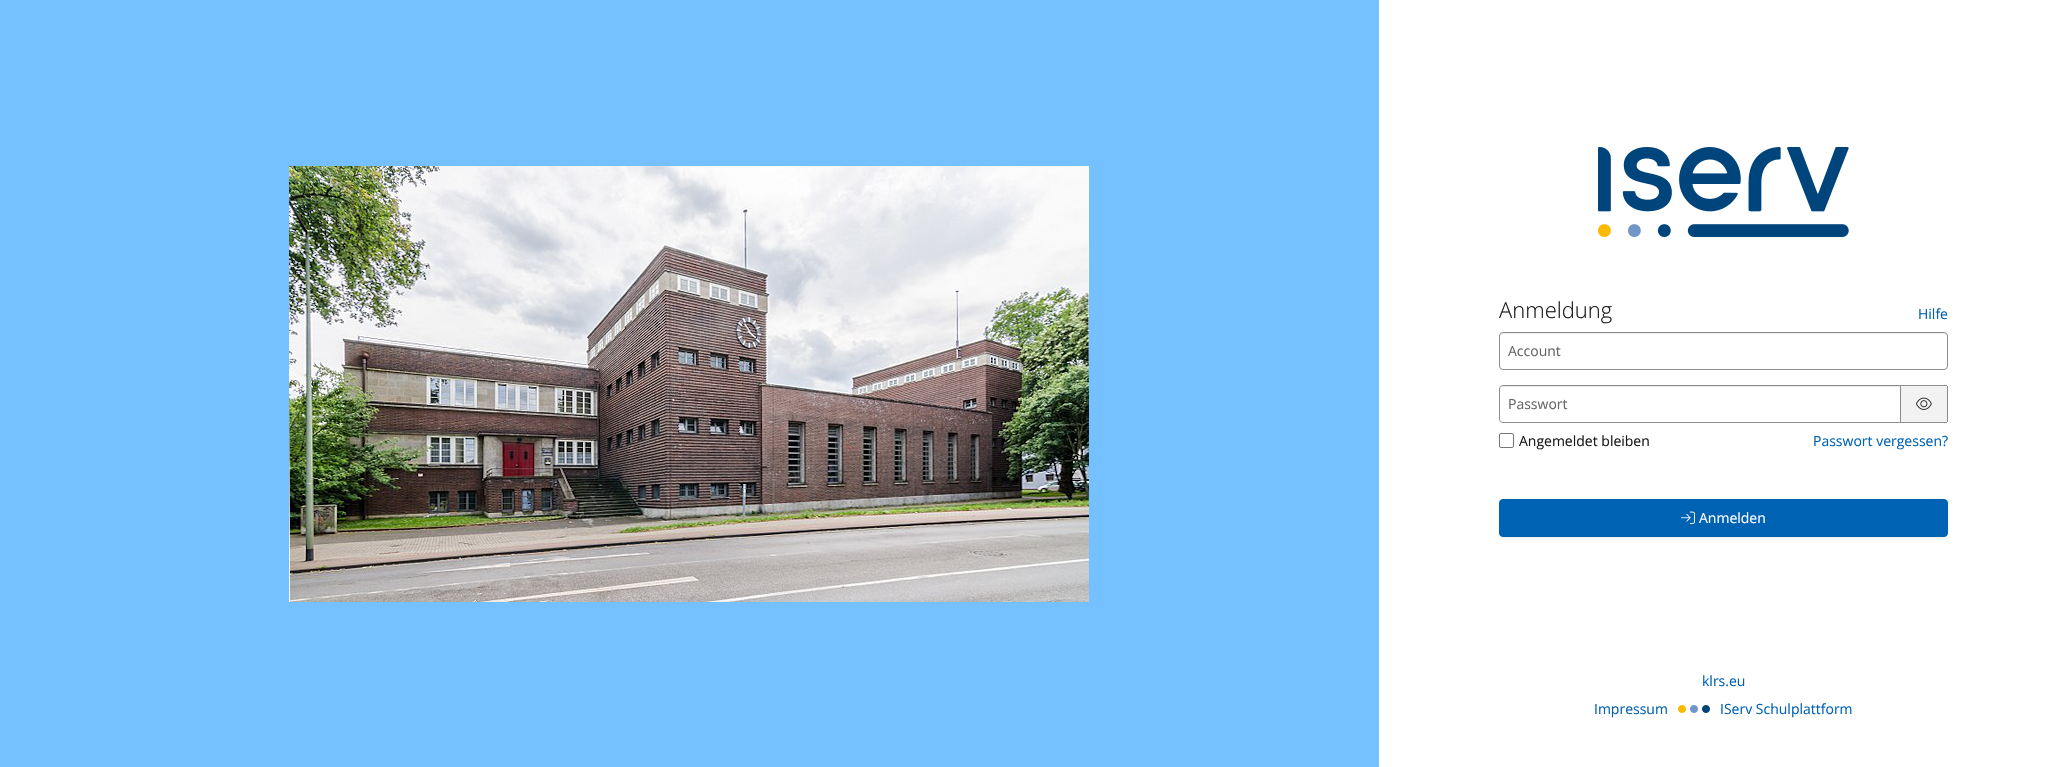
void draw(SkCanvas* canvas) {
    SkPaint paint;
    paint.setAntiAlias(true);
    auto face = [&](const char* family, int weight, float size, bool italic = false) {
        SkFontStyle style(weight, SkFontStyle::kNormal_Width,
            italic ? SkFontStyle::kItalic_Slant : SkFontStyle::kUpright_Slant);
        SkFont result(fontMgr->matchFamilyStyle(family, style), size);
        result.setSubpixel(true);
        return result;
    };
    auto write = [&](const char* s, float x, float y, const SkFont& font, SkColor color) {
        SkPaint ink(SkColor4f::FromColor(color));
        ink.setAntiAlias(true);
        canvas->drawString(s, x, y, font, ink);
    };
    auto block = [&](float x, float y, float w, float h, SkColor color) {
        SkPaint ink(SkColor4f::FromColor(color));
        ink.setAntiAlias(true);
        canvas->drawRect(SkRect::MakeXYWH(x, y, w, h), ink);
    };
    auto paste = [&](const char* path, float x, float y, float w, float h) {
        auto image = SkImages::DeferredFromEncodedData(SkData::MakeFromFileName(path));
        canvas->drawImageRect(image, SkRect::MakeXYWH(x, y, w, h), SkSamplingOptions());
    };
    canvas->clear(SK_ColorWHITE);
    block(0, 0, 1379, 767, SkColorSetRGB(117, 193, 255));
    paste("pic1.png", 289, 166, 800, 436);
    paste("pic2.png", 1598, 147, 251, 90);
    auto kFont1 = face("Open Sans", 300, 22);
    write("Anmeldung", 1499, 318, kFont1, SkColorSetRGB(26, 26, 26));
    auto kFont2 = face("Open Sans", 400, 14);
    write("Hilfe", 1918, 319, kFont2, SkColorSetRGB(0, 98, 179));
    paint.setColor(SkColorSetRGB(236, 236, 236));
    canvas->drawPath(SkPathBuilder().moveTo(1503, 334).lineTo(1944, 334).cubicTo(1946, 334, 1947, 335, 1947, 337).lineTo(1947, 335).lineTo(1945, 333).lineTo(1503, 333).cubicTo(1501, 333, 1500, 335, 1500, 337).cubicTo(1500, 335, 1501, 334, 1503, 334).close().detach(), paint);
    paint.setStyle(SkPaint::kStroke_Style);
    paint.setStrokeWidth(1);
    paint.setColor(SkColorSetRGB(140, 140, 140));
    canvas->drawRoundRect(SkRect::MakeXYWH(1499.5f, 332.5f, 448, 37), 3.5f, 3.5f, paint);
    write("Account", 1508, 356, kFont2, SkColorSetRGB(102, 102, 102));
    paint.setStyle(SkPaint::kFill_Style);
    paint.setColor(SkColorSetRGB(236, 236, 236));
    canvas->drawPath(SkPathBuilder().moveTo(1503, 387).lineTo(1900, 387).lineTo(1900, 386).lineTo(1503, 386).cubicTo(1501, 386, 1500, 387, 1500, 389).lineTo(1500, 390).cubicTo(1500, 388, 1501, 387, 1503, 387).close().detach(), paint);
    paint.setStyle(SkPaint::kStroke_Style);
    paint.setColor(SkColorSetRGB(140, 140, 140));
    canvas->drawPath(SkPathBuilder().moveTo(1503, 385.5f).lineTo(1900.5f, 385.5f).lineTo(1900.5f, 422.5f).lineTo(1503, 422.5f).cubicTo(1501, 422.5f, 1499.5f, 421, 1499.5f, 419).lineTo(1499.5f, 389).cubicTo(1499.5f, 387, 1501, 385.5f, 1503, 385.5f).close().detach(), paint);
    write("Passwort", 1508, 409, kFont2, SkColorSetRGB(102, 102, 102));
    paint.setStyle(SkPaint::kFill_Style);
    paint.setColor(SkColorSetRGB(242, 242, 242));
    canvas->drawPath(SkPathBuilder().moveTo(1901, 385).lineTo(1946, 385).cubicTo(1947, 385, 1948, 386, 1948, 387).lineTo(1948, 421).cubicTo(1948, 422, 1947, 423, 1946, 423).lineTo(1901, 423).close().detach(), paint);
    block(1901, 385, 46, 1, SkColorSetRGB(140, 140, 140));
    block(1947, 386, 1, 36, SkColorSetRGB(140, 140, 140));
    block(1901, 422, 46, 1, SkColorSetRGB(140, 140, 140));
    paste("pic3.png", 1916, 397, 16, 13);
    paint.setStyle(SkPaint::kStroke_Style);
    paint.setColor(SkColorSetRGB(118, 118, 118));
    canvas->drawRoundRect(SkRect::MakeXYWH(1499.5f, 433.5f, 14, 14), 1.5f, 1.5f, paint);
    write("Angemeldet bleiben", 1519, 446, kFont2, SkColorSetRGB(26, 26, 26));
    write("Passwort vergessen?", 1813, 446, kFont2, SkColorSetRGB(0, 98, 179));
    paint.setStyle(SkPaint::kFill_Style);
    paint.setColor(SkColorSetARGB(20, 0, 0, 0));
    paint.setMaskFilter(SkMaskFilter::MakeBlur(kNormal_SkBlurStyle, 1.5f));
    canvas->drawRoundRect(SkRect::MakeXYWH(1499, 500, 449, 38), 4, 4, paint);
    paint.setMaskFilter(nullptr);
    paint.setColor(SkColorSetRGB(0, 98, 179));
    canvas->drawRoundRect(SkRect::MakeXYWH(1499.5f, 499.5f, 448, 37), 3.5f, 3.5f, paint);
    paint.setStyle(SkPaint::kStroke_Style);
    canvas->drawRoundRect(SkRect::MakeXYWH(1499.5f, 499.5f, 448, 37), 3.5f, 3.5f, paint);
    paste("pic4.png", 1681, 511, 14, 13);
    write("Anmelden", 1699, 523, kFont2, SK_ColorWHITE);
    write("klrs.eu", 1702, 686, kFont2, SkColorSetRGB(0, 98, 179));
    write("Impressum", 1594, 714, kFont2, SkColorSetRGB(0, 98, 179));
    paste("pic5.png", 1678, 705, 8, 8);
    paste("pic6.png", 1690, 705, 8, 8);
    paste("pic7.png", 1702, 705, 8, 8);
    write("IServ Schulplattform", 1720, 714, kFont2, SkColorSetRGB(0, 98, 179));
}
